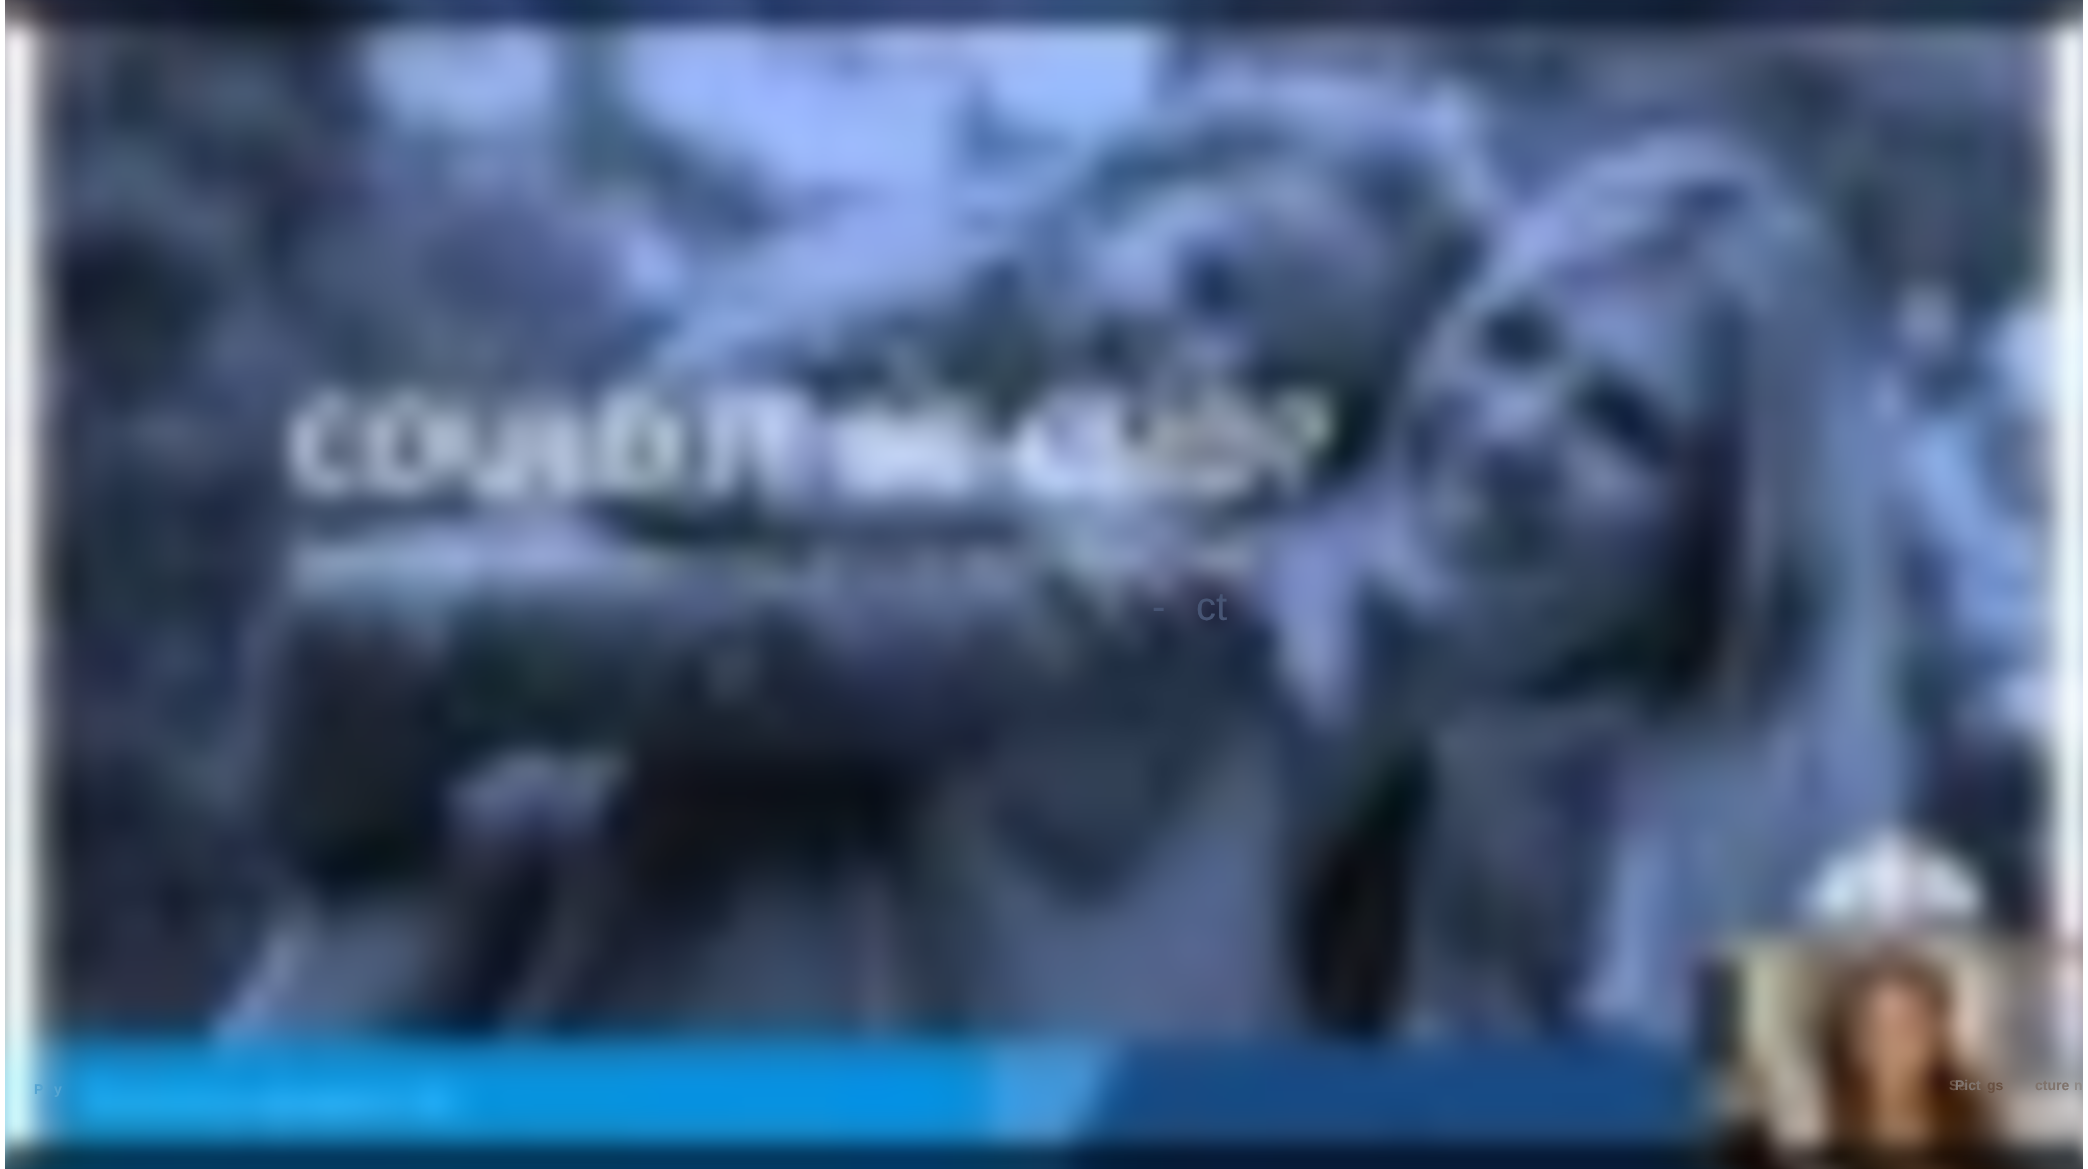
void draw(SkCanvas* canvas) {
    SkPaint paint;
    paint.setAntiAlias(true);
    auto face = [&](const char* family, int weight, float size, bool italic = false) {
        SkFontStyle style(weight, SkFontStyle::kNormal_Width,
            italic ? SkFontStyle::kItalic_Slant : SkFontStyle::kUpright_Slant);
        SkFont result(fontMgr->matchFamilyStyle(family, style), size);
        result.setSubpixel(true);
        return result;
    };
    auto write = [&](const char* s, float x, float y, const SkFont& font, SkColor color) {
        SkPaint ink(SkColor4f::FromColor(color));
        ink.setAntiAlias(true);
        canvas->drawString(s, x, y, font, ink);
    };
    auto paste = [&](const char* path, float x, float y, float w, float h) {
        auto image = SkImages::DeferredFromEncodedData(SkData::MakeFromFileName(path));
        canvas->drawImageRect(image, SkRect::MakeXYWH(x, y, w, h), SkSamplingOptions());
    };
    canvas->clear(SK_ColorWHITE);
    paste("pic1.png", 5, 0, 2078, 1169);
    paste("pic2.png", 5, 0, 2078, 1169);
    auto kFont1 = face("Liberation Sans", 400, 40);
    write("-", 1152, 620, kFont1, SkColorSetRGB(71, 85, 116));
    write("ct", 1196, 620, kFont1, SkColorSetRGB(71, 85, 116));
    auto kFont2 = face("Liberation Sans", 700, 14);
    write("P", 34, 1094, kFont2, SkColorSetRGB(85, 165, 210));
    write("y", 54, 1094, kFont2, SkColorSetRGB(85, 165, 210));
    write("Se", 1949, 1090, kFont2, SkColorSetRGB(104, 80, 65));
    write("Pict", 1955, 1090, kFont2, SkColorSetRGB(128, 116, 109));
    write("cture", 2035, 1090, kFont2, SkColorSetRGB(128, 116, 109));
    write("gs", 1987, 1090, kFont2, SkColorSetRGB(104, 80, 65));
    write("n", 2074, 1090, kFont2, SkColorSetRGB(144, 139, 137));
}
